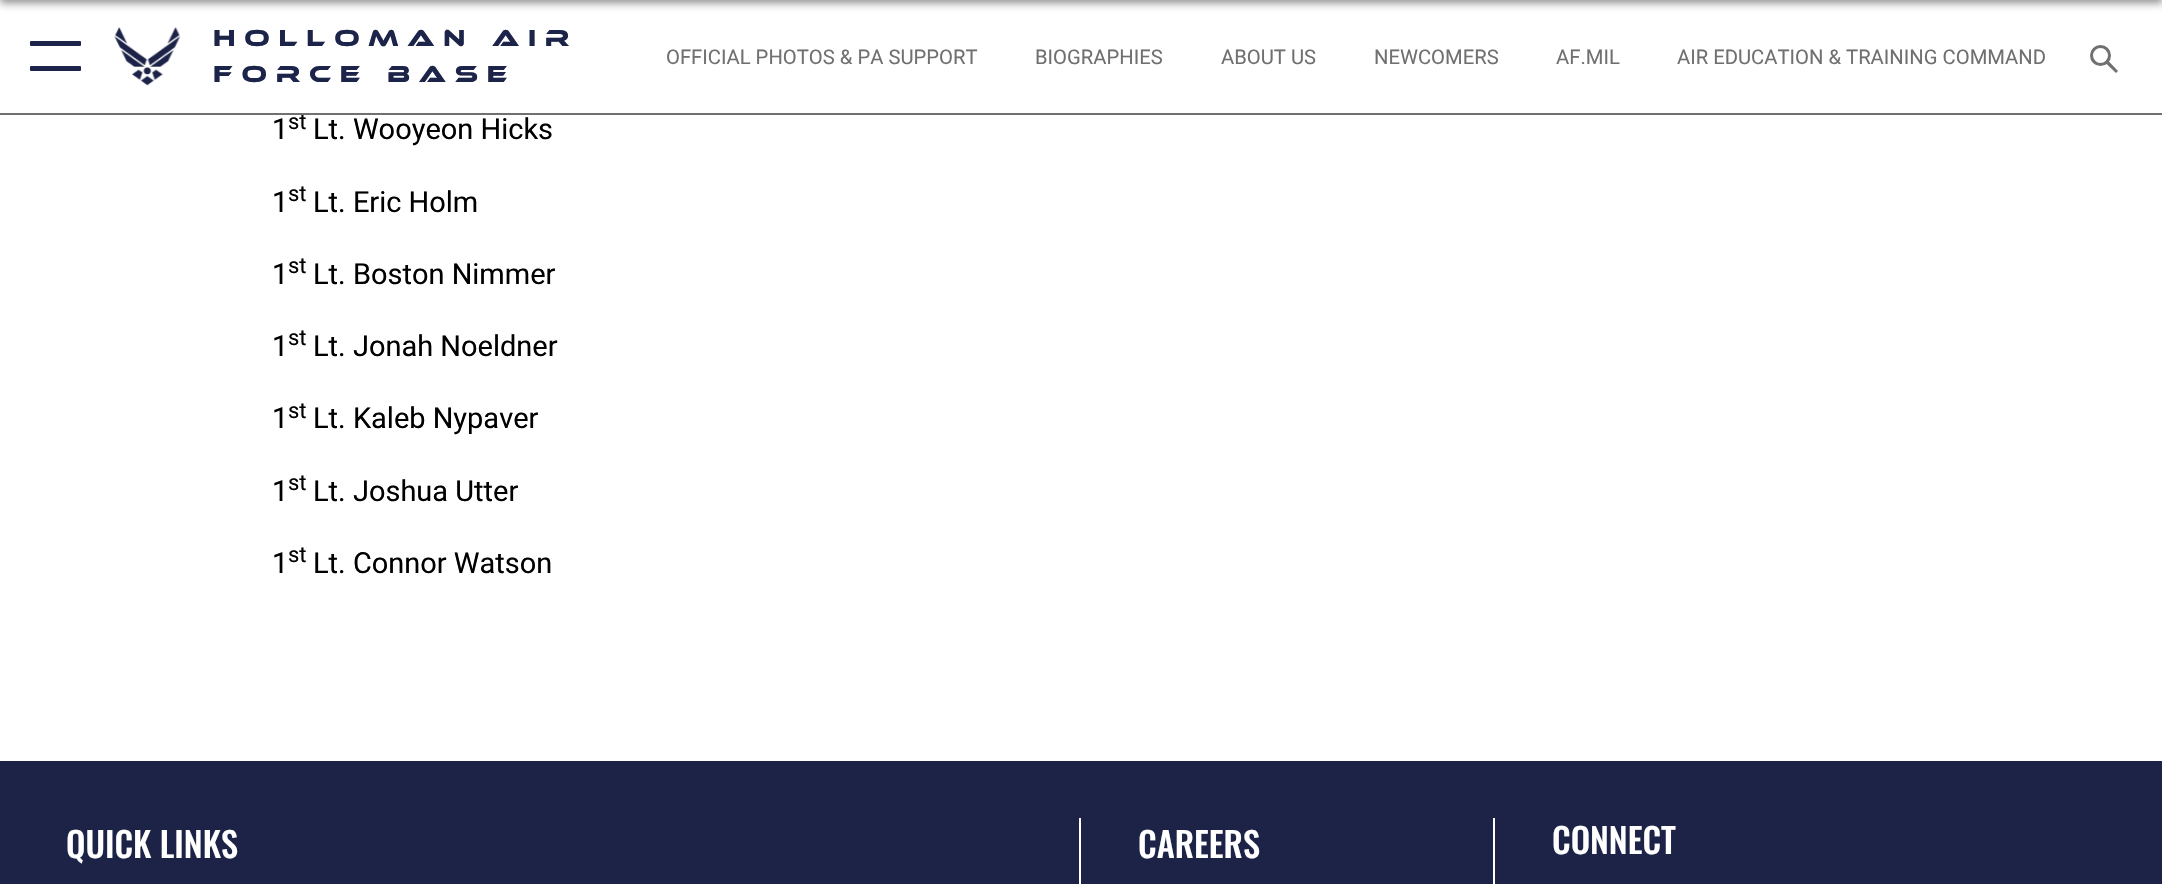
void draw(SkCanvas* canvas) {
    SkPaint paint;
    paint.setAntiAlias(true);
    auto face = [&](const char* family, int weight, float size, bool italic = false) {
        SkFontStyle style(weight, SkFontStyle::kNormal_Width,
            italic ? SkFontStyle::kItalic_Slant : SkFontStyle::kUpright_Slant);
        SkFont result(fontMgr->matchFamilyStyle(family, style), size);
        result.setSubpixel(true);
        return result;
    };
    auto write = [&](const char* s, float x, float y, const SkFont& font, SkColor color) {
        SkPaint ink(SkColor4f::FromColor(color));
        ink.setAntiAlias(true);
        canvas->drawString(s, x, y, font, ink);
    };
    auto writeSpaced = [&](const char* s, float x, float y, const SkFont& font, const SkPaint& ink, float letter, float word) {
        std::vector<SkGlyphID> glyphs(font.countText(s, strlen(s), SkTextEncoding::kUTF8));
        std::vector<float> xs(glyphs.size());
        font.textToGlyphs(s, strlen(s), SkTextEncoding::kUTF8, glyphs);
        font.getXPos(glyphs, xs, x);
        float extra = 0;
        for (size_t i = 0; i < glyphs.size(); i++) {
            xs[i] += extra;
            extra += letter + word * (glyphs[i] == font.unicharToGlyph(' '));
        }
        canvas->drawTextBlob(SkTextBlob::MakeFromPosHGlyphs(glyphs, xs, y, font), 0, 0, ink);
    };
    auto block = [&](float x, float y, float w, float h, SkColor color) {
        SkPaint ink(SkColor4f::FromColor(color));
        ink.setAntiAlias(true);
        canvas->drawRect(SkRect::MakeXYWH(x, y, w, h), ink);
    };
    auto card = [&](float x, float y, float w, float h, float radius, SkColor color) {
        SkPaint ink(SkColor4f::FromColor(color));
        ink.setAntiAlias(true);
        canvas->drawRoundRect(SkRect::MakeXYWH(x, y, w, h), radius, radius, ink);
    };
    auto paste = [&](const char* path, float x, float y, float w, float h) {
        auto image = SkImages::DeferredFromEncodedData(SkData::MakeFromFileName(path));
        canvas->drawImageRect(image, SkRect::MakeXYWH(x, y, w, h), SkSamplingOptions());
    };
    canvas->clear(SK_ColorWHITE);
    paint.setColor(SkColorSetARGB(115, 0, 0, 0));
    paint.setMaskFilter(SkMaskFilter::MakeBlur(kNormal_SkBlurStyle, 4));
    canvas->drawRect(SkRect::MakeXYWH(0, -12, 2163, 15), paint);
    paint.setMaskFilter(nullptr);
    auto kFont1 = face("Roboto", 400, 22);
    write("st", 288, 129, kFont1, SK_ColorBLACK);
    block(0, 113, 2162, 2, SkColorSetRGB(112, 112, 112));
    card(30, 41, 51, 5, 1, SkColorSetRGB(28, 36, 73));
    card(30, 66, 51, 5, 1, SkColorSetRGB(28, 36, 73));
    paste("pic1.png", 114, 27, 67, 59);
    auto kFont2 = face("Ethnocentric", 400, 24);
    paint.setColor(SkColorSetRGB(28, 36, 73));
    writeSpaced("Holloman Air", 213, 46, kFont2, paint, 8.75f, 0);
    writeSpaced("Force Base", 213, 82, kFont2, paint, 8.75f, 0);
    auto kFont3 = face("Roboto", 400, 20.25f);
    write("OFFICIAL PHOTOS & PA SUPPORT", 666, 64, kFont3, SkColorSetRGB(112, 112, 112));
    write("BIOGRAPHIES", 1035, 64, kFont3, SkColorSetRGB(112, 112, 112));
    write("ABOUT US", 1221, 64, kFont3, SkColorSetRGB(112, 112, 112));
    write("NEWCOMERS", 1374, 64, kFont3, SkColorSetRGB(112, 112, 112));
    write("AF.MIL", 1556, 64, kFont3, SkColorSetRGB(112, 112, 112));
    write("AIR EDUCATION & TRAINING COMMAND", 1677, 64, kFont3, SkColorSetRGB(112, 112, 112));
    paint.setStyle(SkPaint::kStroke_Style);
    paint.setStrokeWidth(3);
    paint.setColor(SkColorSetRGB(112, 112, 112));
    canvas->drawCircle(2100.5f, 55.5f, 9, paint);
    paint.setStyle(SkPaint::kFill_Style);
    canvas->drawPath(SkPathBuilder().moveTo(2107.5f, 60).lineTo(2118, 71).lineTo(2116, 73).lineTo(2105, 62.5f).close().detach(), paint);
    auto kFont4 = face("Roboto", 400, 29);
    write("1", 272, 139, kFont4, SK_ColorBLACK);
    write("Lt. Wooyeon Hicks", 313, 139, kFont4, SK_ColorBLACK);
    write("1", 272, 212, kFont4, SK_ColorBLACK);
    write("st", 288, 201, kFont1, SK_ColorBLACK);
    write("Lt. Eric Holm", 313, 212, kFont4, SK_ColorBLACK);
    write("1", 272, 284, kFont4, SK_ColorBLACK);
    write("st", 288, 273, kFont1, SK_ColorBLACK);
    write("Lt. Boston Nimmer", 313, 284, kFont4, SK_ColorBLACK);
    write("1", 272, 356, kFont4, SK_ColorBLACK);
    write("st", 288, 345, kFont1, SK_ColorBLACK);
    write("Lt. Jonah Noeldner", 313, 356, kFont4, SK_ColorBLACK);
    write("1", 272, 428, kFont4, SK_ColorBLACK);
    write("st", 288, 418, kFont1, SK_ColorBLACK);
    write("Lt. Kaleb Nypaver", 313, 428, kFont4, SK_ColorBLACK);
    write("1", 272, 501, kFont4, SK_ColorBLACK);
    write("st", 288, 490, kFont1, SK_ColorBLACK);
    write("Lt. Joshua Utter", 313, 501, kFont4, SK_ColorBLACK);
    write("1", 272, 573, kFont4, SK_ColorBLACK);
    write("st", 288, 562, kFont1, SK_ColorBLACK);
    write("Lt. Connor Watson", 313, 573, kFont4, SK_ColorBLACK);
    block(0, 761, 2162, 123, SkColorSetRGB(28, 35, 71));
    auto kFont5 = face("Oswald", 500, 34.5f);
    write("QUICK LINKS", 66, 858, kFont5, SK_ColorWHITE);
    block(1493, 818, 2, 66, SK_ColorWHITE);
    block(1079, 818, 2, 66, SK_ColorWHITE);
    write("CAREERS", 1138, 858, kFont5, SK_ColorWHITE);
    write("CONNECT", 1552, 854, kFont5, SK_ColorWHITE);
}
